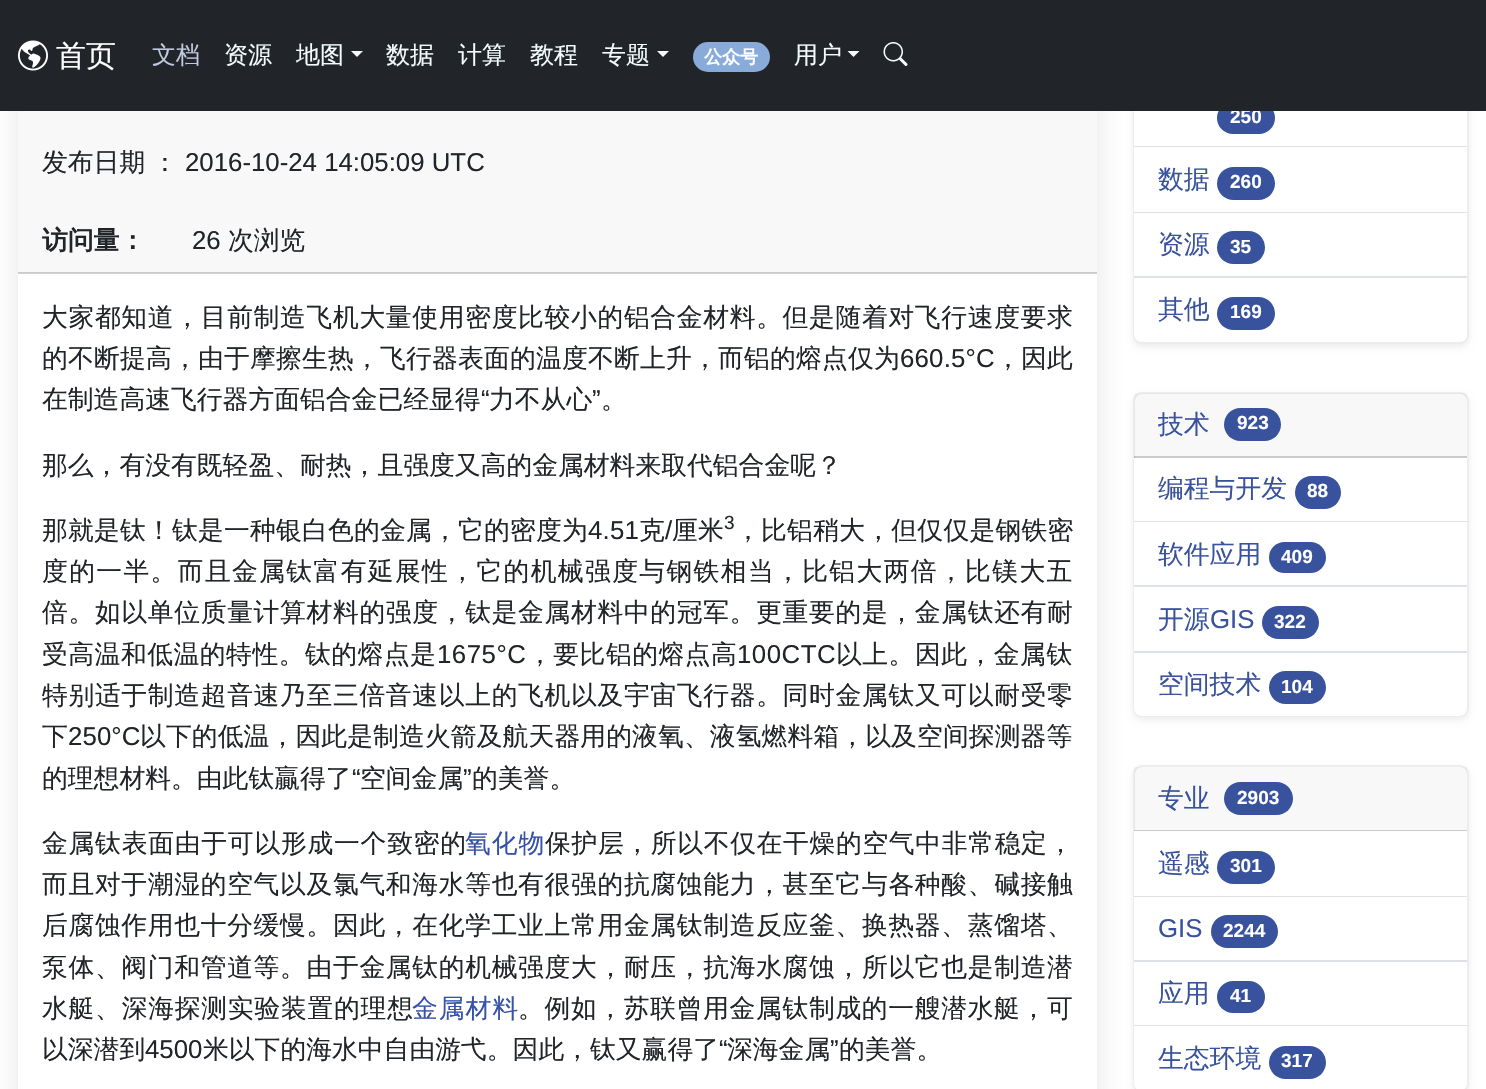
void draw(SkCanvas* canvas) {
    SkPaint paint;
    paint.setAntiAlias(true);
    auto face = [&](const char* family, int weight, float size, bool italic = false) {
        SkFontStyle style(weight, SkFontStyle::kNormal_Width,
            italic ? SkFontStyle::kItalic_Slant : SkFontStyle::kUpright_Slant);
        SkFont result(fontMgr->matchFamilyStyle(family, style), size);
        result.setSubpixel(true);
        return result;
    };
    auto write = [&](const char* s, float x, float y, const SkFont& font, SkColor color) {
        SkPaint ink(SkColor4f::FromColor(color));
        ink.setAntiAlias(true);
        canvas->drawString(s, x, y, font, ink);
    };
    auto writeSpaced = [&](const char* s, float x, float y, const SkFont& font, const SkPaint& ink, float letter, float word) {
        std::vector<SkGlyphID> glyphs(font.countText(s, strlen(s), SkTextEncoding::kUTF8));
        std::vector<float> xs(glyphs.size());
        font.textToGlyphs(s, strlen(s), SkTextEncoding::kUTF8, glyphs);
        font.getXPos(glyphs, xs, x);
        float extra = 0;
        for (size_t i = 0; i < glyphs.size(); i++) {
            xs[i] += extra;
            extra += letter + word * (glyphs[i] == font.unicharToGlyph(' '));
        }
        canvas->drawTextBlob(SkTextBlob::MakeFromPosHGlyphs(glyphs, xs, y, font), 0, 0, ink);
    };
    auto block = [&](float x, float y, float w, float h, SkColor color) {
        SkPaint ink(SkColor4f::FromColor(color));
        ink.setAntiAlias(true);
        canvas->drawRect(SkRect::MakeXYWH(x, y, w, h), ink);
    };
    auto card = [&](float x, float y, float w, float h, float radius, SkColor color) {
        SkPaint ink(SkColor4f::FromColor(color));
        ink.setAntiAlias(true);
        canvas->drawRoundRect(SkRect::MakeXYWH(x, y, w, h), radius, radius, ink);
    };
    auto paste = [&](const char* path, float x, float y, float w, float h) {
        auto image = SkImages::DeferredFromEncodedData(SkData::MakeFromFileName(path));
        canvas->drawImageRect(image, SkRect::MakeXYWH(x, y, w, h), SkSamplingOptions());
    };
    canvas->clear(SK_ColorWHITE);
    paint.setColor(SkColorSetARGB(31, 48, 48, 48));
    paint.setMaskFilter(SkMaskFilter::MakeBlur(kNormal_SkBlurStyle, 15));
    canvas->drawRoundRect(SkRect::MakeXYWH(18, 17, 1079, 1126), 9, 9, paint);
    paint.setMaskFilter(nullptr);
    paint.setColor(SkColorSetARGB(18, 0, 0, 0));
    paint.setMaskFilter(SkMaskFilter::MakeBlur(kNormal_SkBlurStyle, 3));
    canvas->drawRoundRect(SkRect::MakeXYWH(1133, 20, 336, 327), 9, 9, paint);
    paint.setMaskFilter(nullptr);
    card(1133, 17, 336, 327, 9, SK_ColorWHITE);
    paint.setStyle(SkPaint::kStroke_Style);
    paint.setStrokeWidth(2);
    canvas->drawRoundRect(SkRect::MakeXYWH(1134, 18, 334, 325), 8, 8, paint);
    card(1217, 102, 58, 32, 16, SkColorSetRGB(56, 82, 157));
    auto kFont1 = face("Liberation Sans", 700, 19);
    write("250", 1230, 123, kFont1, SK_ColorWHITE);
    block(0, 0, 1486, 111, SkColorSetRGB(33, 37, 41));
    paste("pic1.png", 18, 40, 30, 31);
    auto kFont2 = face("WenQuanYi Zen Hei", 500, 30);
    write("首页", 56, 66, kFont2, SK_ColorWHITE);
    auto kFont3 = face("WenQuanYi Zen Hei", 500, 24);
    write("文档", 152, 63, kFont3, SkColorSetRGB(191, 201, 223));
    write("资源", 224, 63, kFont3, SkColorSetRGB(243, 251, 255));
    write("地图", 296, 63, kFont3, SkColorSetRGB(243, 251, 255));
    paint.setStyle(SkPaint::kFill_Style);
    paint.setColor(SkColorSetRGB(243, 251, 255));
    canvas->drawPath(SkPathBuilder().moveTo(351, 51).lineTo(363, 51).lineTo(357, 57).close().detach(), paint);
    write("数据", 386, 63, kFont3, SkColorSetRGB(243, 251, 255));
    write("计算", 458, 63, kFont3, SkColorSetRGB(243, 251, 255));
    write("教程", 530, 63, kFont3, SkColorSetRGB(243, 251, 255));
    write("专题", 602, 63, kFont3, SkColorSetRGB(243, 251, 255));
    canvas->drawPath(SkPathBuilder().moveTo(657, 51).lineTo(669, 51).lineTo(663, 57).close().detach(), paint);
    card(693, 42, 77, 30, 15, SkColorSetRGB(136, 171, 218));
    auto kFont4 = face("WenQuanYi Zen Hei", 700, 18);
    write("公众号", 704, 63, kFont4, SK_ColorWHITE);
    write("用户", 794, 63, kFont3, SkColorSetRGB(243, 251, 255));
    canvas->drawPath(SkPathBuilder().moveTo(847.5f, 51).lineTo(859.5f, 51).lineTo(853.5f, 57).close().detach(), paint);
    paste("pic2.png", 883, 42, 25, 24);
    block(18, 111, 1079, 978, SK_ColorWHITE);
    block(18, 111, 1079, 162, SkColorSetARGB(8, 33, 37, 41));
    block(18, 272, 1079, 2, SkColorSetARGB(46, 0, 0, 0));
    auto kFont5 = face("WenQuanYi Zen Hei", 500, 25.8f);
    write("发布日期", 42, 171, kFont5, SkColorSetRGB(33, 37, 41));
    write("：", 152, 171, kFont5, SkColorSetRGB(33, 37, 41));
    auto kFont6 = face("Liberation Sans", 400, 25.8f);
    write("2016-10-24 14:05:09 UTC", 185, 171, kFont6, SkColorSetRGB(33, 37, 41));
    auto kFont7 = face("WenQuanYi Zen Hei", 700, 25.8f);
    write("访问量：", 42, 249, kFont7, SkColorSetRGB(33, 37, 41));
    write("26", 192, 249, kFont6, SkColorSetRGB(33, 37, 41));
    write("次浏览", 228, 249, kFont5, SkColorSetRGB(33, 37, 41));
    paint.setColor(SkColorSetRGB(33, 37, 41));
    writeSpaced("大家都知道，目前制造飞机大量使用密度比较小的铝合金材料。但是随着对飞行速度要求", 42, 326, kFont5, paint, 0.65f, 0);
    writeSpaced("的不断提高，由于摩擦生热，飞行器表面的温度不断上升，而铝的熔点仅为", 42, 367, kFont5, paint, 0.2f, 0);
    writeSpaced("660.5°C", 900, 367, kFont6, paint, 0.2f, 0);
    writeSpaced("，因此", 995, 367, kFont5, paint, 0.2f, 0);
    write("在制造高速飞行器方面铝合金已经显得", 42, 408, kFont5, SkColorSetRGB(33, 37, 41));
    write("“", 481, 408, kFont6, SkColorSetRGB(33, 37, 41));
    write("力不从心", 489, 408, kFont5, SkColorSetRGB(33, 37, 41));
    write("”", 592, 408, kFont6, SkColorSetRGB(33, 37, 41));
    write("。", 601, 408, kFont5, SkColorSetRGB(33, 37, 41));
    write("那么，有没有既轻盈、耐热，且强度又高的金属材料来取代铝合金呢？", 42, 474, kFont5, SkColorSetRGB(33, 37, 41));
    writeSpaced("那就是钛！钛是一种银白色的金属，它的密度为", 42, 539, kFont5, paint, 0.2f, 0);
    writeSpaced("4.51", 588, 539, kFont6, paint, 0.2f, 0);
    writeSpaced("克", 639, 539, kFont5, paint, 0.2f, 0);
    writeSpaced("/", 665, 539, kFont6, paint, 0.2f, 0);
    writeSpaced("厘米", 672, 539, kFont5, paint, 0.2f, 0);
    auto kFont8 = face("Liberation Sans", 400, 19);
    write("3", 724, 529, kFont8, SkColorSetRGB(33, 37, 41));
    writeSpaced("，比铝稍大，但仅仅是钢铁密", 735, 539, kFont5, paint, 0.25f, 0);
    writeSpaced("度的一半。而且金属钛富有延展性，它的机械强度与钢铁相当，比铝大两倍，比镁大五", 42, 580, kFont5, paint, 1.35f, 0);
    writeSpaced("倍。如以单位质量计算材料的强度，钛是金属材料中的冠军。更重要的是，金属钛还有耐", 42, 621, kFont5, paint, 0.65f, 0);
    writeSpaced("受高温和低温的特性。钛的熔点是", 42, 663, kFont5, paint, 0.5f, 0);
    writeSpaced("1675°C", 437, 663, kFont6, paint, 0.5f, 0);
    writeSpaced("，要比铝的熔点高", 527, 663, kFont5, paint, 0.5f, 0);
    writeSpaced("100CTC", 737, 663, kFont6, paint, 0.5f, 0);
    writeSpaced("以上。因此，金属钛", 836, 663, kFont5, paint, 0.5f, 0);
    writeSpaced("特别适于制造超音速乃至三倍音速以上的飞机以及宇宙飞行器。同时金属钛又可以耐受零", 42, 704, kFont5, paint, 0.65f, 0);
    writeSpaced("下", 42, 745, kFont5, paint, 0.1f, 0);
    writeSpaced("250°C", 68, 745, kFont6, paint, 0.1f, 0);
    writeSpaced("以下的低温，因此是制造火箭及航天器用的液氧、液氢燃料箱，以及空间探测器等", 140, 745, kFont5, paint, 0.1f, 0);
    write("的理想材料。由此钛贏得了", 42, 787, kFont5, SkColorSetRGB(33, 37, 41));
    write("“", 352, 787, kFont6, SkColorSetRGB(33, 37, 41));
    write("空间金属", 360, 787, kFont5, SkColorSetRGB(33, 37, 41));
    write("”", 463, 787, kFont6, SkColorSetRGB(33, 37, 41));
    write("的美誉。", 472, 787, kFont5, SkColorSetRGB(33, 37, 41));
    writeSpaced("金属钛表面由于可以形成一个致密的", 42, 852, kFont5, paint, 0.75f, 0);
    paint.setColor(SkColorSetRGB(53, 81, 171));
    writeSpaced("氧化物", 465, 852, kFont5, paint, 1, 0);
    paint.setColor(SkColorSetRGB(33, 37, 41));
    writeSpaced("保护层，所以不仅在干燥的空气中非常稳定，", 545, 852, kFont5, paint, 0.65f, 0);
    writeSpaced("而且对于潮湿的空气以及氯气和海水等也有很强的抗腐蚀能力，甚至它与各种酸、碱接触", 42, 893, kFont5, paint, 0.65f, 0);
    writeSpaced("后腐蚀作用也十分缓慢。因此，在化学工业上常用金属钛制造反应釜、换热器、蒸馏塔、", 42, 934, kFont5, paint, 0.65f, 0);
    writeSpaced("泵体、阀门和管道等。由于金属钛的机械强度大，耐压，抗海水腐蚀，所以它也是制造潜", 42, 976, kFont5, paint, 0.65f, 0);
    writeSpaced("水艇、深海探测实验装置的理想", 42, 1017, kFont5, paint, 0.75f, 0);
    paint.setColor(SkColorSetRGB(53, 81, 171));
    writeSpaced("金属材料", 412, 1017, kFont5, paint, 1, 0);
    paint.setColor(SkColorSetRGB(33, 37, 41));
    writeSpaced("。例如，苏联曾用金属钛制成的一艘潜水艇，可", 518, 1017, kFont5, paint, 0.65f, 0);
    write("以深潜到", 42, 1058, kFont5, SkColorSetRGB(33, 37, 41));
    write("4500", 145, 1058, kFont6, SkColorSetRGB(33, 37, 41));
    write("米以下的海水中自由游弋。因此，钛又赢得了", 203, 1058, kFont5, SkColorSetRGB(33, 37, 41));
    write("“", 719, 1058, kFont6, SkColorSetRGB(33, 37, 41));
    write("深海金属", 727, 1058, kFont5, SkColorSetRGB(33, 37, 41));
    write("”", 830, 1058, kFont6, SkColorSetRGB(33, 37, 41));
    write("的美誉。", 839, 1058, kFont5, SkColorSetRGB(33, 37, 41));
    block(1134, 111, 1, 35, SK_ColorWHITE);
    block(1134, 146, 333, 1, SkColorSetRGB(222, 226, 230));
    block(1134, 147, 1, 65, SK_ColorWHITE);
    block(1134, 212, 333, 1, SkColorSetRGB(222, 226, 230));
    write("数据", 1158, 188, kFont5, SkColorSetRGB(56, 82, 157));
    card(1217, 167, 58, 33, 16.5f, SkColorSetRGB(56, 82, 157));
    write("260", 1230, 188, kFont1, SK_ColorWHITE);
    block(1134, 213, 1, 63, SK_ColorWHITE);
    block(1134, 276, 333, 2, SkColorSetRGB(222, 226, 230));
    write("资源", 1158, 253, kFont5, SkColorSetRGB(56, 82, 157));
    card(1217, 231, 48, 33, 16.5f, SkColorSetRGB(56, 82, 157));
    write("35", 1230, 253, kFont1, SK_ColorWHITE);
    paint.setColor(SK_ColorWHITE);
    canvas->drawPath(SkPathBuilder().moveTo(1134, 278).lineTo(1467, 278).lineTo(1467, 334).cubicTo(1467, 338.5f, 1463.5f, 342, 1459, 342).lineTo(1142, 342).cubicTo(1137.5f, 342, 1134, 338.5f, 1134, 334).close().detach(), paint);
    write("其他", 1158, 318, kFont5, SkColorSetRGB(56, 82, 157));
    card(1217, 297, 58, 33, 16.5f, SkColorSetRGB(56, 82, 157));
    write("169", 1230, 318, kFont1, SK_ColorWHITE);
    paint.setColor(SkColorSetARGB(18, 0, 0, 0));
    paint.setMaskFilter(SkMaskFilter::MakeBlur(kNormal_SkBlurStyle, 3));
    canvas->drawRoundRect(SkRect::MakeXYWH(1133, 395, 336, 325), 9, 9, paint);
    paint.setMaskFilter(nullptr);
    card(1133, 392, 336, 325, 9, SK_ColorWHITE);
    paint.setStyle(SkPaint::kStroke_Style);
    canvas->drawRoundRect(SkRect::MakeXYWH(1134, 393, 334, 323), 8, 8, paint);
    block(1134, 393, 333, 65, SkColorSetARGB(8, 33, 37, 41));
    block(1134, 456, 333, 2, SkColorSetARGB(46, 0, 0, 0));
    write("技术", 1158, 433, kFont5, SkColorSetRGB(56, 82, 157));
    card(1224, 408, 57, 33, 16.5f, SkColorSetRGB(56, 82, 157));
    write("923", 1237, 429, kFont1, SK_ColorWHITE);
    block(1134, 458, 1, 63, SK_ColorWHITE);
    block(1134, 521, 333, 1, SkColorSetRGB(222, 226, 230));
    write("编程与开发", 1158, 497, kFont5, SkColorSetRGB(56, 82, 157));
    card(1295, 476, 46, 33, 16.5f, SkColorSetRGB(56, 82, 157));
    write("88", 1307, 497, kFont1, SK_ColorWHITE);
    block(1134, 522, 1, 63, SK_ColorWHITE);
    block(1134, 585, 333, 2, SkColorSetRGB(222, 226, 230));
    write("软件应用", 1158, 563, kFont5, SkColorSetRGB(56, 82, 157));
    card(1269, 542, 57, 31, 15.5f, SkColorSetRGB(56, 82, 157));
    write("409", 1281, 563, kFont1, SK_ColorWHITE);
    block(1134, 587, 1, 64, SK_ColorWHITE);
    block(1134, 651, 333, 2, SkColorSetRGB(222, 226, 230));
    write("开源", 1158, 628, kFont5, SkColorSetRGB(56, 82, 157));
    write("GIS", 1210, 628, kFont6, SkColorSetRGB(56, 82, 157));
    card(1262, 606, 57, 33, 16.5f, SkColorSetRGB(56, 82, 157));
    write("322", 1274, 628, kFont1, SK_ColorWHITE);
    paint.setStyle(SkPaint::kFill_Style);
    paint.setColor(SK_ColorWHITE);
    canvas->drawPath(SkPathBuilder().moveTo(1134, 653).lineTo(1467, 653).lineTo(1467, 708).cubicTo(1467, 712.5f, 1463.5f, 716, 1459, 716).lineTo(1142, 716).cubicTo(1137.5f, 716, 1134, 712.5f, 1134, 708).close().detach(), paint);
    write("空间技术", 1158, 693, kFont5, SkColorSetRGB(56, 82, 157));
    card(1269, 671, 57, 33, 16.5f, SkColorSetRGB(56, 82, 157));
    write("104", 1281, 693, kFont1, SK_ColorWHITE);
    paint.setColor(SkColorSetARGB(18, 0, 0, 0));
    paint.setMaskFilter(SkMaskFilter::MakeBlur(kNormal_SkBlurStyle, 3));
    canvas->drawRoundRect(SkRect::MakeXYWH(1133, 768, 336, 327), 9, 9, paint);
    paint.setMaskFilter(nullptr);
    card(1133, 765, 336, 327, 9, SK_ColorWHITE);
    paint.setStyle(SkPaint::kStroke_Style);
    canvas->drawRoundRect(SkRect::MakeXYWH(1134, 766, 334, 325), 8, 8, paint);
    block(1134, 767, 333, 64, SkColorSetARGB(8, 33, 37, 41));
    block(1134, 830, 333, 1, SkColorSetARGB(46, 0, 0, 0));
    write("专业", 1158, 807, kFont5, SkColorSetRGB(56, 82, 157));
    card(1224, 782, 69, 33, 16.5f, SkColorSetRGB(56, 82, 157));
    write("2903", 1237, 804, kFont1, SK_ColorWHITE);
    block(1134, 831, 1, 65, SK_ColorWHITE);
    block(1134, 896, 333, 1, SkColorSetRGB(222, 226, 230));
    write("遥感", 1158, 872, kFont5, SkColorSetRGB(56, 82, 157));
    card(1217, 851, 58, 33, 16.5f, SkColorSetRGB(56, 82, 157));
    write("301", 1230, 872, kFont1, SK_ColorWHITE);
    block(1134, 897, 1, 63, SK_ColorWHITE);
    block(1134, 960, 333, 2, SkColorSetRGB(222, 226, 230));
    write("GIS", 1158, 937, kFont6, SkColorSetRGB(56, 82, 157));
    card(1211, 915, 67, 33, 16.5f, SkColorSetRGB(56, 82, 157));
    write("2244", 1223, 937, kFont1, SK_ColorWHITE);
    block(1134, 962, 1, 63, SK_ColorWHITE);
    block(1134, 1025, 333, 1, SkColorSetRGB(222, 226, 230));
    write("应用", 1158, 1002, kFont5, SkColorSetRGB(56, 82, 157));
    card(1217, 981, 48, 32, 16, SkColorSetRGB(56, 82, 157));
    write("41", 1230, 1002, kFont1, SK_ColorWHITE);
    paint.setStyle(SkPaint::kFill_Style);
    paint.setColor(SK_ColorWHITE);
    canvas->drawPath(SkPathBuilder().moveTo(1134, 1026).lineTo(1467, 1026).lineTo(1467, 1083).cubicTo(1467, 1087.5f, 1463.5f, 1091, 1459, 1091).lineTo(1142, 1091).cubicTo(1137.5f, 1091, 1134, 1087.5f, 1134, 1083).close().detach(), paint);
    write("生态环境", 1158, 1067, kFont5, SkColorSetRGB(56, 82, 157));
    card(1269, 1046, 57, 33, 16.5f, SkColorSetRGB(56, 82, 157));
    write("317", 1281, 1067, kFont1, SK_ColorWHITE);
}
